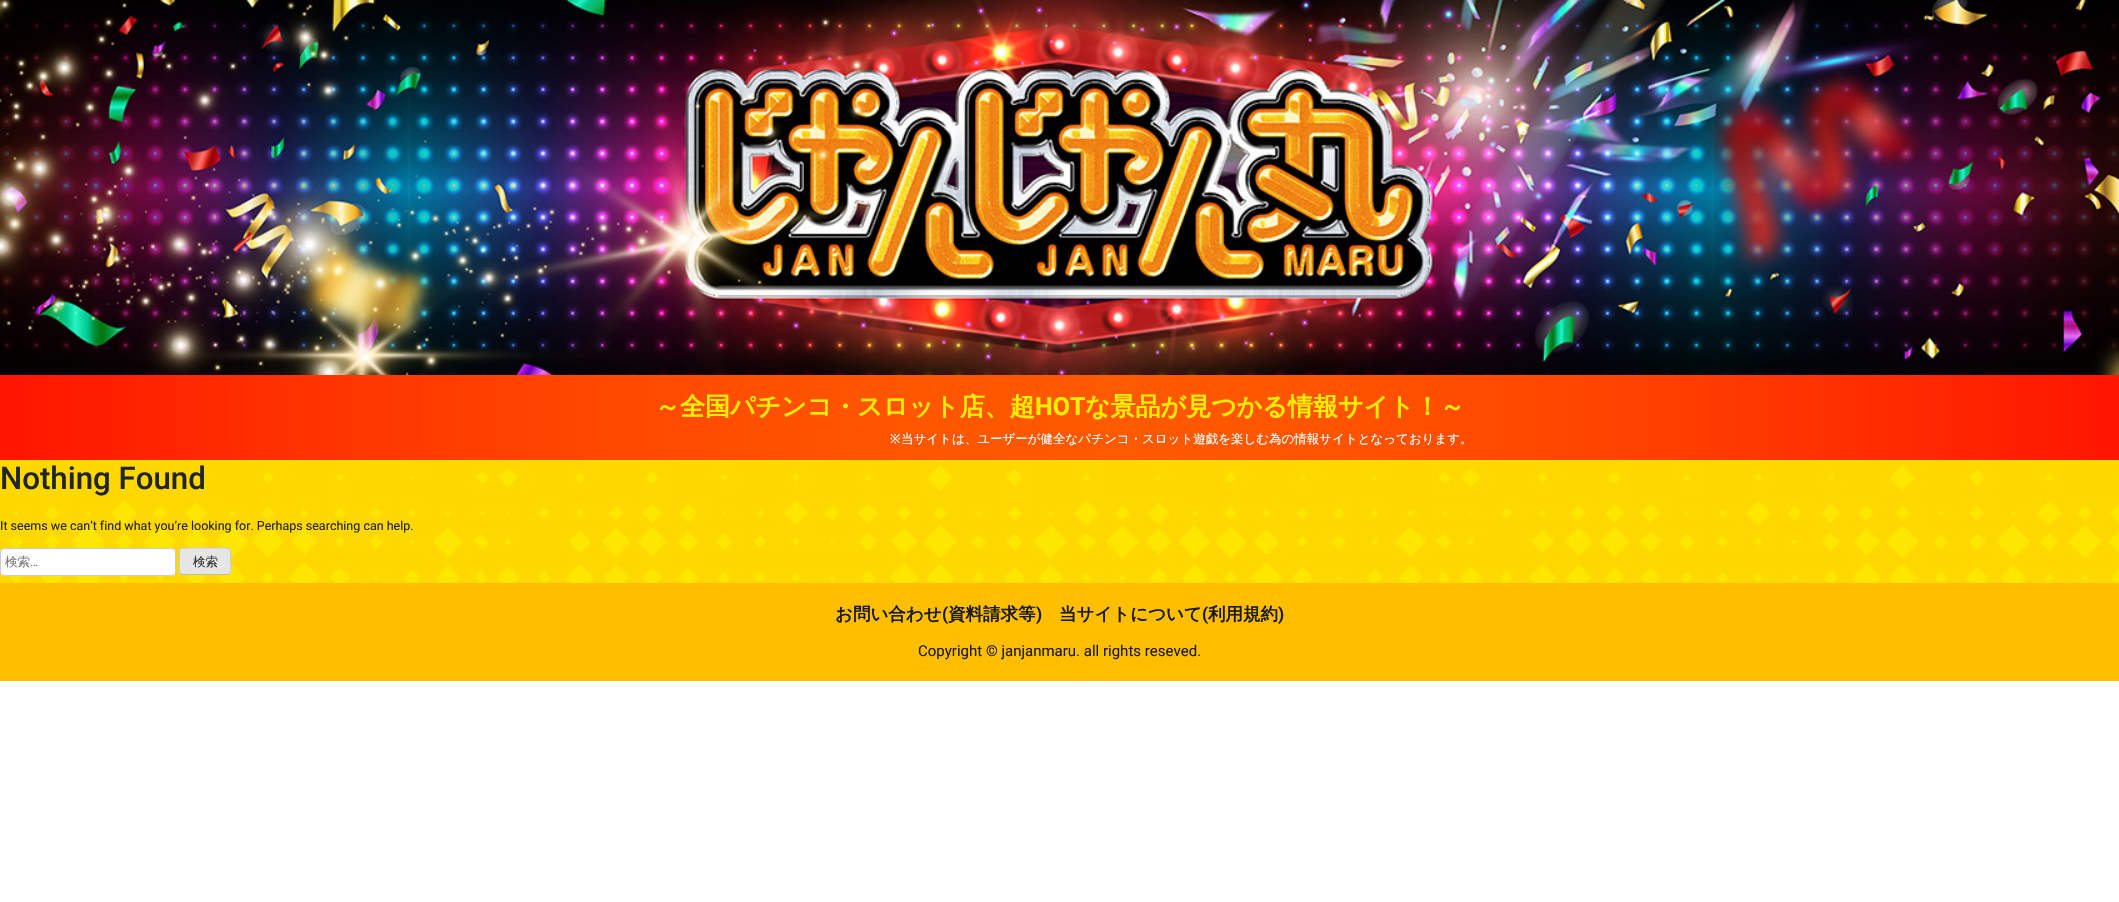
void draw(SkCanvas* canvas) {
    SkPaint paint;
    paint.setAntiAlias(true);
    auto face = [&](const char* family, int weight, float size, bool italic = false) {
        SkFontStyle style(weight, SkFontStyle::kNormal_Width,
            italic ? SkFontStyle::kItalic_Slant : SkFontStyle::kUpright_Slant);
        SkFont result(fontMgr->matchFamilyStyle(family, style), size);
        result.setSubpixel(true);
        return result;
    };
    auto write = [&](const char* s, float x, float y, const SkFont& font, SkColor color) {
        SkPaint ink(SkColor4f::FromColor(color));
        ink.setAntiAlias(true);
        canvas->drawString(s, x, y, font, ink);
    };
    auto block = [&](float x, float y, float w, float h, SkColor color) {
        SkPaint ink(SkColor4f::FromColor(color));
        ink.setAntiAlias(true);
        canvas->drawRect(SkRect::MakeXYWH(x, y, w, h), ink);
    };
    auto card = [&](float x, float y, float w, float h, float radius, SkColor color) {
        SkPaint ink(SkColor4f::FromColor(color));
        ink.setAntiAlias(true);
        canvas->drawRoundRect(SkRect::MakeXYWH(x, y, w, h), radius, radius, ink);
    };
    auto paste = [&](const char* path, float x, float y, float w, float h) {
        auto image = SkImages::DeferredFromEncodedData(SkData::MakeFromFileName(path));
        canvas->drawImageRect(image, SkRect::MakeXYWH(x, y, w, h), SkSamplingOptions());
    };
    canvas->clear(SK_ColorWHITE);
    paste("pic1.png", 0, 0, 2119, 375);
    {
        const SkColor colors[] = {SkColorSetRGB(255, 20, 0), SkColorSetRGB(255, 48, 0), SkColorSetRGB(255, 71, 0), SkColorSetRGB(255, 85, 0), SkColorSetRGB(255, 90, 0), SkColorSetRGB(255, 84, 0), SkColorSetRGB(255, 67, 0), SkColorSetRGB(255, 40, 0), SkColorSetRGB(255, 20, 0)};
        const float stops[] = {0, 0.13f, 0.28f, 0.41f, 0.53f, 0.63f, 0.76f, 0.91f, 1};
        const SkPoint ends[] = {{0, 418}, {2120, 417}};
        paint.setShader(SkGradientShader::MakeLinear(ends, colors, stops, 9, SkTileMode::kClamp));
        paint.setAlpha(255);
    }
    canvas->drawRect(SkRect::MakeXYWH(0, 375, 2119, 85), paint);
    auto kFont1 = face("WenQuanYi Zen Hei", 700, 25);
    write("～全国パチンコ・スロット店、超", 655, 415, kFont1, SkColorSetRGB(255, 238, 0));
    auto kFont2 = face("Roboto", 700, 25);
    write("HOT", 1035, 415, kFont2, SkColorSetRGB(255, 238, 0));
    write("な景品が見つかる情報サイト！～", 1085, 415, kFont1, SkColorSetRGB(255, 238, 0));
    auto kFont3 = face("Noto Sans", 400, 12.5f);
    write("※", 890, 443, kFont3, SK_ColorWHITE);
    auto kFont4 = face("WenQuanYi Zen Hei", 500, 12.5f);
    write("当サイトは、ユーザーが健全なパチンコ・スロット遊戯を楽しむ為の情報サイトとなっております。", 901, 443, kFont4, SK_ColorWHITE);
    block(0, 582, 2119, 1, SkColorSetRGB(255, 221, 0));
    paste("pic2.png", 0, 460, 2119, 123);
    auto kFont5 = face("Roboto", 500, 31.25f);
    write("Nothing Found", 0, 489, kFont5, SkColorSetRGB(33, 37, 41));
    auto kFont6 = face("Roboto", 400, 12.5f);
    write("It seems we can’t find what you’re looking for. Perhaps searching can help.", 0, 530, kFont6, SkColorSetRGB(33, 37, 41));
    paint.setShader(nullptr);
    paint.setColor(SK_ColorWHITE);
    canvas->drawRoundRect(SkRect::MakeXYWH(0.5f, 548.5f, 175, 27), 3.5f, 3.5f, paint);
    paint.setStyle(SkPaint::kStroke_Style);
    paint.setStrokeWidth(1);
    paint.setColor(SkColorSetRGB(204, 204, 204));
    canvas->drawRoundRect(SkRect::MakeXYWH(0.5f, 548.5f, 175, 27), 3.5f, 3.5f, paint);
    write("検索", 5, 566, kFont4, SkColorSetRGB(117, 117, 117));
    write("…", 30, 566, kFont6, SkColorSetRGB(117, 117, 117));
    card(179, 548, 52, 27, 4, SkColorSetRGB(230, 230, 230));
    paint.setStrokeWidth(1.2f);
    paint.setColor(SkColorSetRGB(187, 187, 187));
    canvas->drawPath(SkPathBuilder().moveTo(229.5f, 573.5f).lineTo(228, 574.5f).lineTo(182, 574.5f).lineTo(180.5f, 573.5f).detach(), paint);
    paint.setColor(SkColorSetRGB(204, 204, 204));
    canvas->drawPath(SkPathBuilder().moveTo(180.5f, 573.5f).cubicTo(178, 571.5f, 179.5f, 564, 179.5f, 561).cubicTo(179.5f, 547.5f, 177, 548, 190, 548).lineTo(220, 548).cubicTo(233, 548, 230.5f, 547.5f, 230.5f, 561).cubicTo(230.5f, 564, 232, 571.5f, 229.5f, 573.5f).detach(), paint);
    write("検索", 193, 566, kFont4, SkColorSetRGB(46, 46, 46));
    block(0, 583, 2119, 98, SkColorSetRGB(255, 190, 0));
    auto kFont7 = face("WenQuanYi Zen Hei", 700, 17.5f);
    write("お問い合わせ", 835, 620, kFont7, SkColorSetRGB(26, 26, 26));
    auto kFont8 = face("Roboto", 700, 17.5f);
    write("(", 942, 620, kFont8, SkColorSetRGB(26, 26, 26));
    write("資料請求等", 948, 620, kFont7, SkColorSetRGB(26, 26, 26));
    write(")", 1036, 620, kFont8, SkColorSetRGB(26, 26, 26));
    write("当サイトについて", 1059, 620, kFont7, SkColorSetRGB(26, 26, 26));
    write("(", 1202, 620, kFont8, SkColorSetRGB(26, 26, 26));
    write("利用規約", 1208, 620, kFont7, SkColorSetRGB(26, 26, 26));
    write(")", 1278, 620, kFont8, SkColorSetRGB(26, 26, 26));
    auto kFont9 = face("Roboto", 400, 15);
    write("Copyright © janjanmaru. all rights reseved.", 918, 656, kFont9, SkColorSetRGB(26, 26, 26));
}
